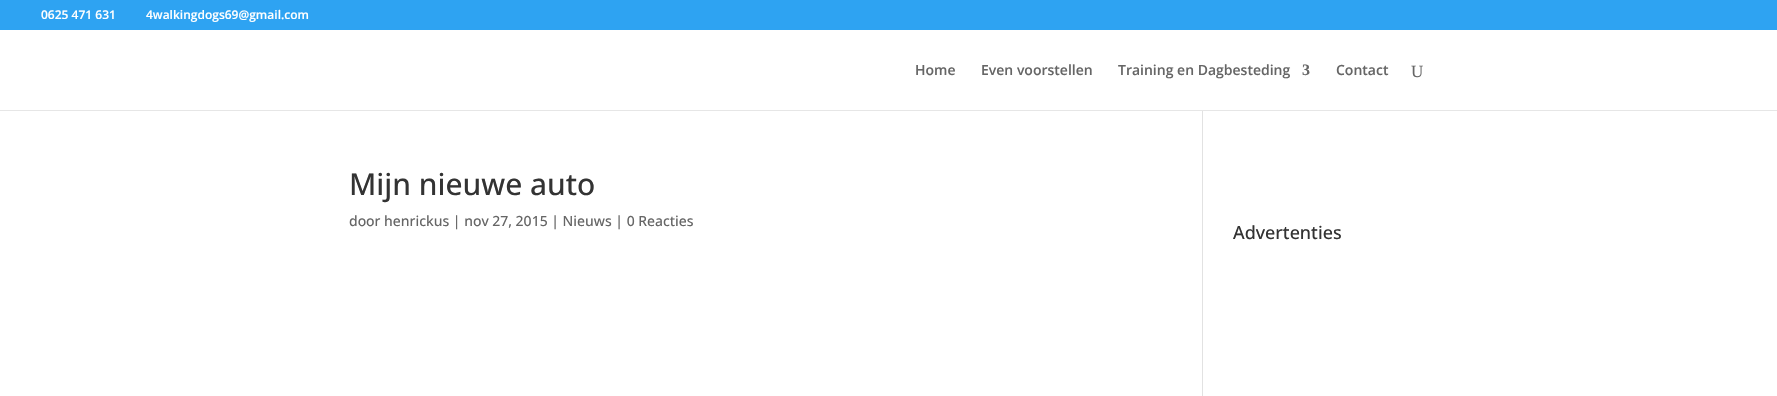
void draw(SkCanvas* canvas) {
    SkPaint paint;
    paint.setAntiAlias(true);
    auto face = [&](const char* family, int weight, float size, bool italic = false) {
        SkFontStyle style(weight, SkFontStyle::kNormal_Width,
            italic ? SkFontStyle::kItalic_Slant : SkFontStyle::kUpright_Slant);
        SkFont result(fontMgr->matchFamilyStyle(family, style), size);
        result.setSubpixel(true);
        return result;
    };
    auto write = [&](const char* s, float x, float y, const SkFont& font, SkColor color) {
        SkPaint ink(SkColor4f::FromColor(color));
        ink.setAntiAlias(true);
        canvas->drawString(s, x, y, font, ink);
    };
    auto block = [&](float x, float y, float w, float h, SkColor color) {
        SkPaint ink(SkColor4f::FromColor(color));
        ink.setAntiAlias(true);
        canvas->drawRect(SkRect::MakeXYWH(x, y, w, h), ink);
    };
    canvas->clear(SK_ColorWHITE);
    block(0, 0, 1777, 30, SkColorSetRGB(46, 163, 242));
    auto kFont1 = face("Open Sans", 600, 12);
    write("0625 471 631", 41, 19, kFont1, SK_ColorWHITE);
    write("4walkingdogs69@gmail.com", 146, 19, kFont1, SK_ColorWHITE);
    block(0, 110, 1777, 1, SkColorSetRGB(230, 230, 230));
    auto kFont2 = face("Open Sans", 600, 14);
    write("Home", 915, 75, kFont2, SkColorSetRGB(102, 102, 102));
    write("Even voorstellen", 981, 75, kFont2, SkColorSetRGB(102, 102, 102));
    write("Training en Dagbesteding", 1118, 75, kFont2, SkColorSetRGB(102, 102, 102));
    auto kFont3 = face("Liberation Serif", 700, 16);
    write("3", 1302, 75, kFont3, SkColorSetRGB(102, 102, 102));
    write("Contact", 1336, 75, kFont2, SkColorSetRGB(102, 102, 102));
    auto kFont4 = face("Liberation Serif", 400, 17);
    write("U", 1411, 77, kFont4, SkColorSetRGB(102, 102, 102));
    block(1202, 111, 1, 285, SkColorSetRGB(226, 226, 226));
    auto kFont5 = face("Open Sans", 500, 30);
    write("Mijn nieuwe auto", 349, 195, kFont5, SkColorSetRGB(51, 51, 51));
    auto kFont6 = face("Open Sans", 500, 14);
    write("door henrickus | nov 27, 2015 | Nieuws | 0 Reacties", 349, 226, kFont6, SkColorSetRGB(102, 102, 102));
    auto kFont7 = face("Open Sans", 500, 18);
    write("Advertenties", 1233, 239, kFont7, SkColorSetRGB(51, 51, 51));
}
